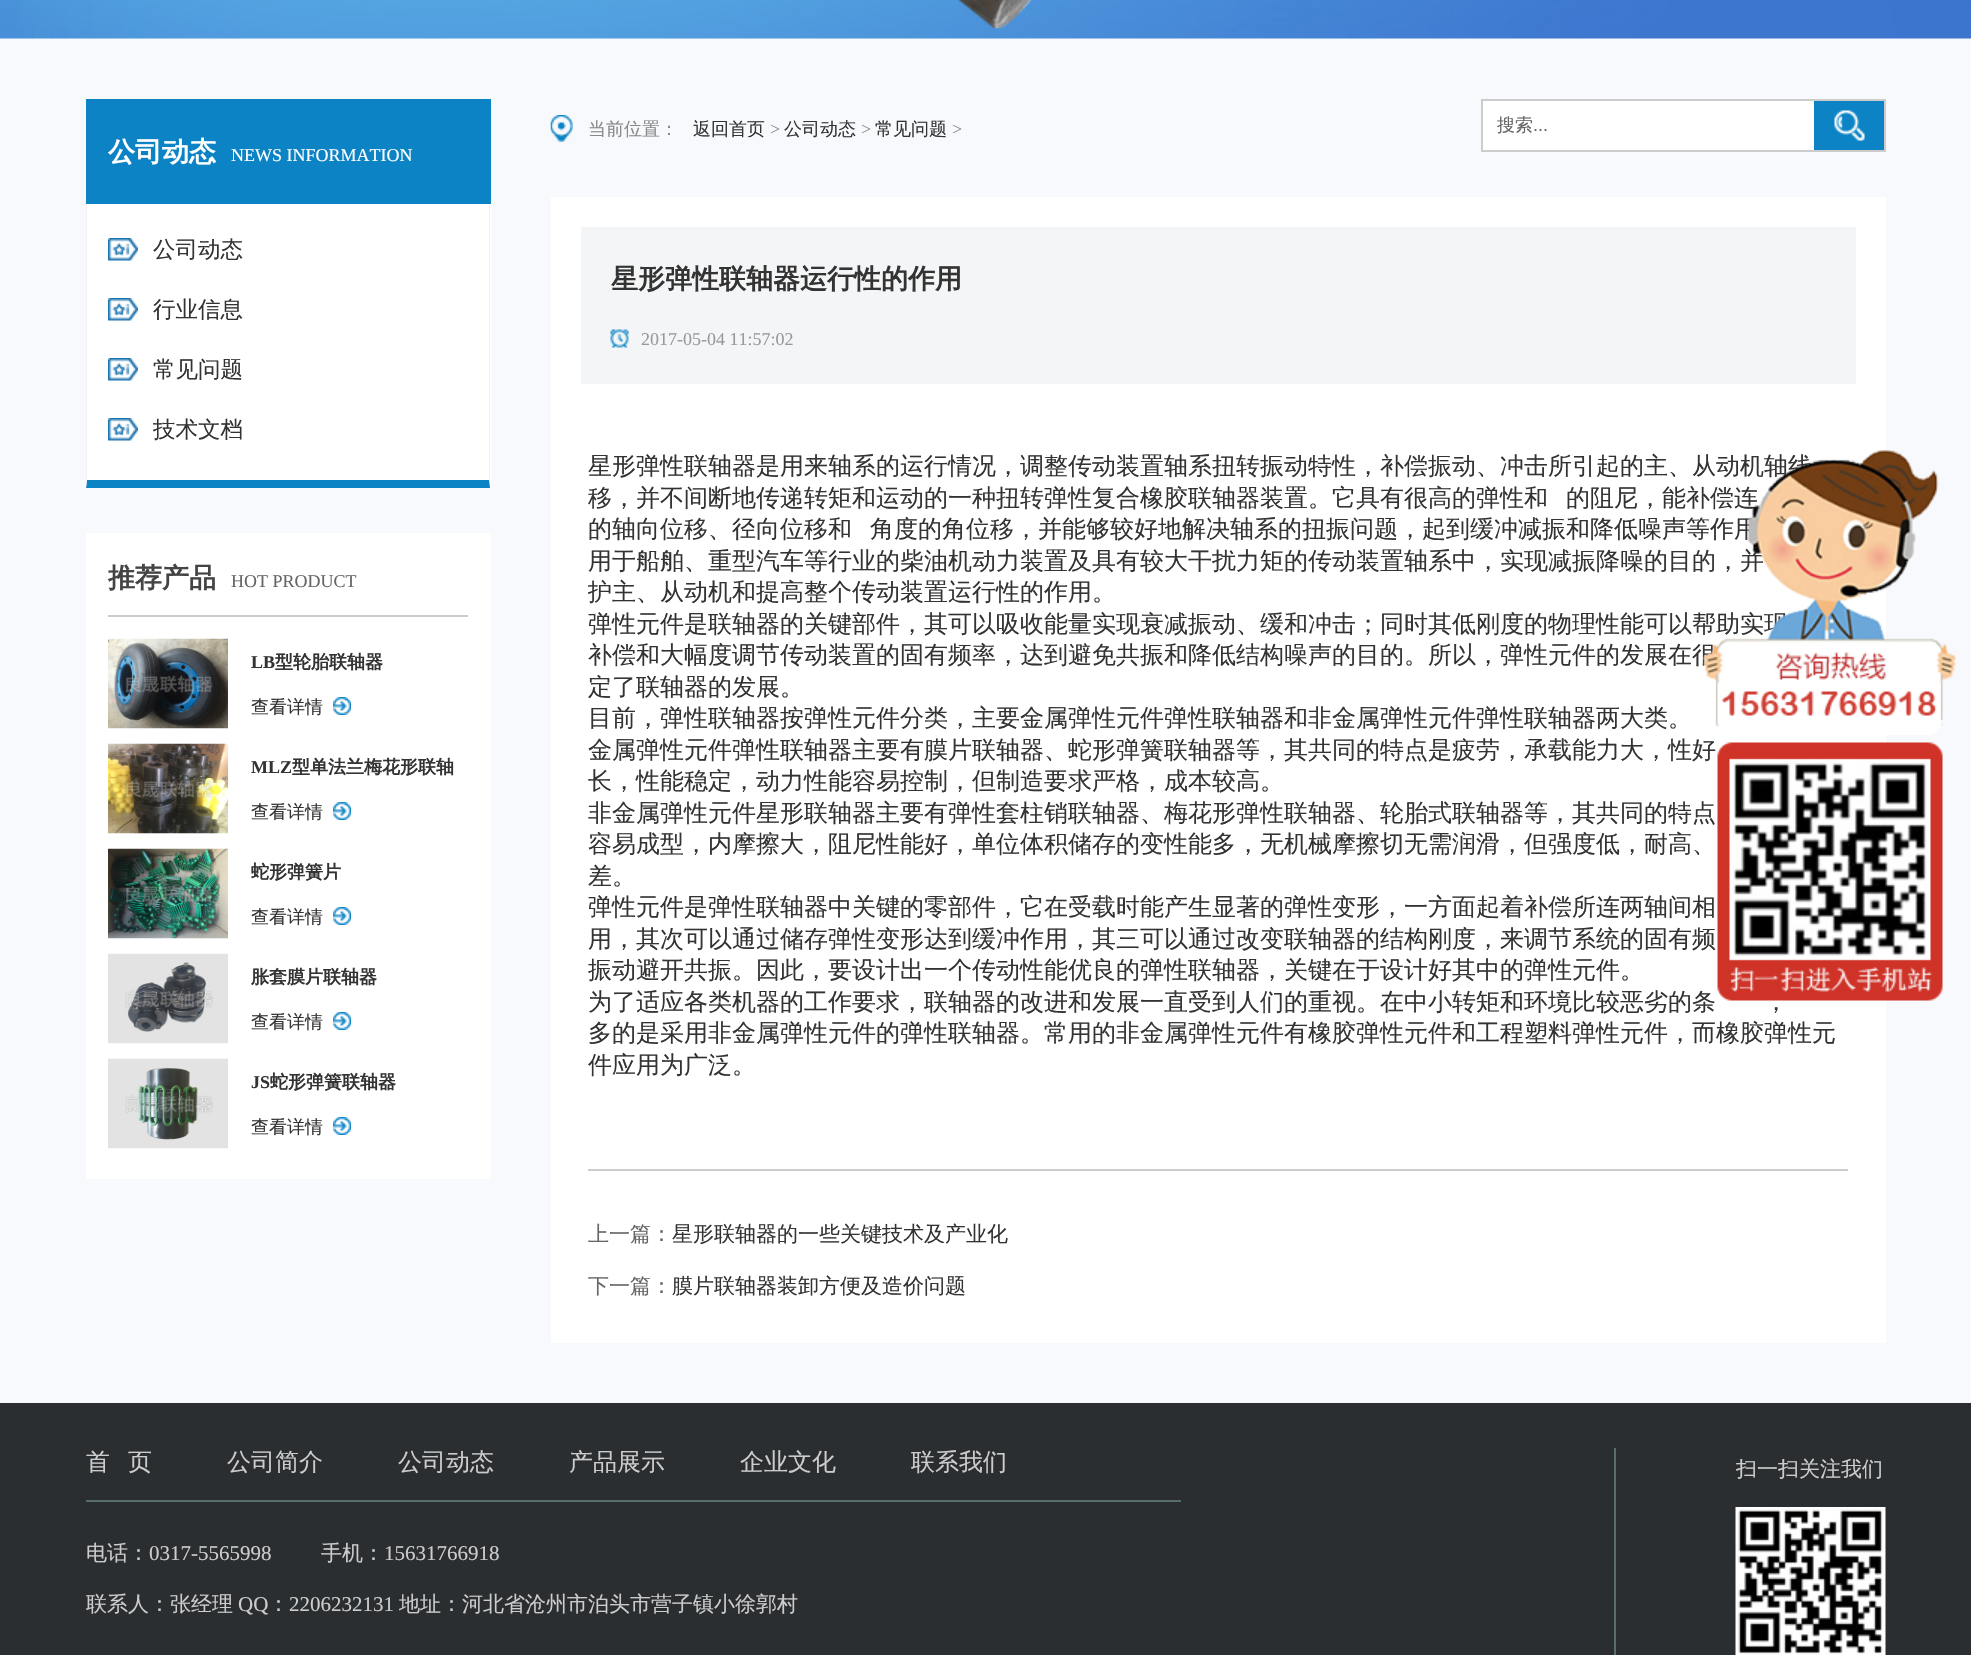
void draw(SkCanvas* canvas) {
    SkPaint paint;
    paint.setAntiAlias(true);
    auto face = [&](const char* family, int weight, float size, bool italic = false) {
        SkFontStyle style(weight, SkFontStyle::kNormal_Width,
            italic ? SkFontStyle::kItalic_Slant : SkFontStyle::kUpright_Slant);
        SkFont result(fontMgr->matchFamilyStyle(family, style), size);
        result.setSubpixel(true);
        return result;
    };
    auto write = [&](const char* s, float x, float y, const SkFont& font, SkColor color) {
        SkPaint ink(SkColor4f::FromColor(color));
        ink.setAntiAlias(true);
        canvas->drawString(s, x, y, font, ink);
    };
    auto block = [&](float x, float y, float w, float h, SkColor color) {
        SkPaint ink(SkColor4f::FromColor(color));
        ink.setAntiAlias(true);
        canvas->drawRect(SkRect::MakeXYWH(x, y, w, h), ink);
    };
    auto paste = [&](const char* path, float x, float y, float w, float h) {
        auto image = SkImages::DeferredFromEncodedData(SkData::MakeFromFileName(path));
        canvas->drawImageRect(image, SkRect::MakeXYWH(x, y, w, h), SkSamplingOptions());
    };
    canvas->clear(SkColorSetRGB(247, 249, 252));
    paste("pic1.png", 0, 0, 1971, 39);
    block(86, 99, 405, 105, SkColorSetRGB(12, 131, 196));
    auto kFont1 = face("WenQuanYi Zen Hei", 700, 27);
    write("公司动态", 108, 161, kFont1, SK_ColorWHITE);
    auto kFont2 = face("Liberation Serif", 400, 18);
    write("NEWS INFORMATION", 231, 161, kFont2, SK_ColorWHITE);
    block(86, 204, 405, 284, SK_ColorWHITE);
    paint.setColor(SkColorSetRGB(241, 241, 241));
    canvas->drawPath(SkPathBuilder().moveTo(490, 204).lineTo(490, 488).lineTo(489, 480).lineTo(489, 204).close().detach(), paint);
    paint.setColor(SkColorSetRGB(12, 131, 196));
    canvas->drawPath(SkPathBuilder().moveTo(490, 488).lineTo(86, 488).lineTo(87, 480).lineTo(489, 480).close().detach(), paint);
    paint.setColor(SkColorSetRGB(241, 241, 241));
    canvas->drawPath(SkPathBuilder().moveTo(86, 488).lineTo(86, 204).lineTo(87, 204).lineTo(87, 480).close().detach(), paint);
    paste("pic2.png", 108, 238, 30, 23);
    auto kFont3 = face("WenQuanYi Zen Hei", 500, 22.5f);
    write("公司动态", 153, 257, kFont3, SkColorSetRGB(51, 51, 51));
    paste("pic2.png", 108, 298, 30, 23);
    write("行业信息", 153, 317, kFont3, SkColorSetRGB(51, 51, 51));
    paste("pic2.png", 108, 358, 30, 23);
    write("常见问题", 153, 377, kFont3, SkColorSetRGB(51, 51, 51));
    paste("pic2.png", 108, 418, 30, 23);
    write("技术文档", 153, 437, kFont3, SkColorSetRGB(51, 51, 51));
    block(86, 533, 405, 646, SK_ColorWHITE);
    block(108, 615, 360, 2, SkColorSetRGB(204, 204, 204));
    write("推荐产品", 108, 587, kFont1, SkColorSetRGB(68, 68, 68));
    write("HOT PRODUCT", 231, 587, kFont2, SkColorSetRGB(102, 102, 102));
    paste("pic3.png", 108, 638, 120, 91);
    auto kFont4 = face("Liberation Serif", 700, 18);
    write("LB", 251, 668, kFont4, SkColorSetRGB(51, 51, 51));
    auto kFont5 = face("WenQuanYi Zen Hei", 700, 18);
    write("型轮胎联轴器", 275, 668, kFont5, SkColorSetRGB(51, 51, 51));
    paste("pic4.png", 333, 697, 18, 18);
    auto kFont6 = face("WenQuanYi Zen Hei", 500, 18);
    write("查看详情", 251, 713, kFont6, SkColorSetRGB(51, 51, 51));
    paste("pic5.png", 108, 743, 120, 91);
    write("MLZ", 251, 773, kFont4, SkColorSetRGB(51, 51, 51));
    write("型单法兰梅花形联轴", 292, 773, kFont5, SkColorSetRGB(51, 51, 51));
    paste("pic4.png", 333, 802, 18, 18);
    write("查看详情", 251, 818, kFont6, SkColorSetRGB(51, 51, 51));
    paste("pic6.png", 108, 848, 120, 91);
    write("蛇形弹簧片", 251, 878, kFont5, SkColorSetRGB(51, 51, 51));
    paste("pic4.png", 333, 907, 18, 18);
    write("查看详情", 251, 923, kFont6, SkColorSetRGB(51, 51, 51));
    paste("pic7.png", 108, 953, 120, 91);
    write("胀套膜片联轴器", 251, 983, kFont5, SkColorSetRGB(51, 51, 51));
    paste("pic4.png", 333, 1012, 18, 18);
    write("查看详情", 251, 1028, kFont6, SkColorSetRGB(51, 51, 51));
    paste("pic8.png", 108, 1058, 120, 91);
    write("JS", 251, 1088, kFont4, SkColorSetRGB(51, 51, 51));
    write("蛇形弹簧联轴器", 270, 1088, kFont5, SkColorSetRGB(51, 51, 51));
    paste("pic4.png", 333, 1117, 18, 18);
    write("查看详情", 251, 1133, kFont6, SkColorSetRGB(51, 51, 51));
    paste("pic9.png", 550, 115, 23, 27);
    write("当前位置：", 588, 135, kFont6, SkColorSetRGB(136, 136, 136));
    write("返回首页", 693, 135, kFont6, SkColorSetRGB(51, 51, 51));
    write(">", 770, 135, kFont2, SkColorSetRGB(136, 136, 136));
    write("公司动态", 784, 135, kFont6, SkColorSetRGB(51, 51, 51));
    write(">", 861, 135, kFont2, SkColorSetRGB(136, 136, 136));
    write("常见问题", 875, 135, kFont6, SkColorSetRGB(51, 51, 51));
    write(">", 952, 135, kFont2, SkColorSetRGB(136, 136, 136));
    block(1483, 101, 331, 49, SK_ColorWHITE);
    block(1481, 99, 405, 2, SkColorSetRGB(204, 204, 204));
    block(1481, 150, 333, 2, SkColorSetRGB(204, 204, 204));
    block(1481, 99, 2, 53, SkColorSetRGB(204, 204, 204));
    write("搜索", 1497, 131, kFont6, SkColorSetRGB(102, 102, 102));
    auto kFont7 = face("Liberation Sans", 400, 18);
    write("...", 1533, 131, kFont7, SkColorSetRGB(102, 102, 102));
    block(1814, 101, 70, 49, SkColorSetRGB(12, 131, 196));
    paste("pic10.png", 1834, 110, 31, 31);
    block(1884, 99, 2, 53, SkColorSetRGB(204, 204, 204));
    block(1814, 150, 72, 2, SkColorSetRGB(204, 204, 204));
    paint.setColor(SkColorSetRGB(244, 245, 246));
    canvas->drawRect(SkRect::MakeXYWH(566, 212, 1305, 187), paint);
    paint.setStyle(SkPaint::kStroke_Style);
    paint.setStrokeWidth(30);
    paint.setColor(SK_ColorWHITE);
    canvas->drawRect(SkRect::MakeXYWH(566, 212, 1305, 187), paint);
    write("星形弹性联轴器运行性的作用", 611, 288, kFont1, SkColorSetRGB(51, 51, 51));
    paste("pic11.png", 610, 329, 19, 19);
    write("2017-05-04 11:57:02", 641, 345, kFont2, SkColorSetRGB(153, 153, 153));
    block(551, 414, 1335, 929, SK_ColorWHITE);
    auto kFont8 = face("WenQuanYi Zen Hei", 500, 24);
    write("星形弹性联轴器是用来轴系的运行情况，调整传动装置轴系扭转振动特性，补偿振动、冲击所引起的主、从动机轴线", 588, 474, kFont8, SkColorSetRGB(51, 51, 51));
    write("移，并不间断地传递转矩和运动的一种扭转弹性复合橡胶联轴器装置。它具有很高的弹性和", 588, 506, kFont8, SkColorSetRGB(51, 51, 51));
    write("的阻尼，能补偿连", 1566, 506, kFont8, SkColorSetRGB(51, 51, 51));
    write("的轴向位移、径向位移和", 588, 537, kFont8, SkColorSetRGB(51, 51, 51));
    write("角度的角位移，并能够较好地解决轴系的扭振问题，起到缓冲减振和降低噪声等作用", 870, 537, kFont8, SkColorSetRGB(51, 51, 51));
    write("用于船舶、重型汽车等行业的柴油机动力装置及具有较大干扰力矩的传动装置轴系中，实现减振降噪的目的，并", 588, 569, kFont8, SkColorSetRGB(51, 51, 51));
    write("护主、从动机和提高整个传动装置运行性的作用。", 588, 600, kFont8, SkColorSetRGB(51, 51, 51));
    write("弹性元件是联轴器的关键部件，其可以吸收能量实现衰减振动、缓和冲击；同时其低刚度的物理性能可以帮助实现", 588, 632, kFont8, SkColorSetRGB(51, 51, 51));
    write("补偿和大幅度调节传动装置的固有频率，达到避免共振和降低结构噪声的目的。所以，弹性元件的发展在很", 588, 663, kFont8, SkColorSetRGB(51, 51, 51));
    write("定了联轴器的发展。", 588, 695, kFont8, SkColorSetRGB(51, 51, 51));
    write("目前，弹性联轴器按弹性元件分类，主要金属弹性元件弹性联轴器和非金属弹性元件弹性联轴器两大类。", 588, 726, kFont8, SkColorSetRGB(51, 51, 51));
    write("金属弹性元件弹性联轴器主要有膜片联轴器、蛇形弹簧联轴器等，其共同的特点是疲劳，承载能力大，性好", 588, 758, kFont8, SkColorSetRGB(51, 51, 51));
    write("长，性能稳定，动力性能容易控制，但制造要求严格，成本较高。", 588, 789, kFont8, SkColorSetRGB(51, 51, 51));
    write("非金属弹性元件星形联轴器主要有弹性套柱销联轴器、梅花形弹性联轴器、轮胎式联轴器等，其共同的特点", 588, 821, kFont8, SkColorSetRGB(51, 51, 51));
    write("容易成型，内摩擦大，阻尼性能好，单位体积储存的变性能多，无机械摩擦切无需润滑，但强度低，耐高、", 588, 852, kFont8, SkColorSetRGB(51, 51, 51));
    write("差。", 588, 884, kFont8, SkColorSetRGB(51, 51, 51));
    write("弹性元件是弹性联轴器中关键的零部件，它在受载时能产生显著的弹性变形，一方面起着补偿所连两轴间相", 588, 915, kFont8, SkColorSetRGB(51, 51, 51));
    write("用，其次可以通过储存弹性变形达到缓冲作用，其三可以通过改变联轴器的结构刚度，来调节系统的固有频", 588, 947, kFont8, SkColorSetRGB(51, 51, 51));
    write("振动避开共振。因此，要设计出一个传动性能优良的弹性联轴器，关键在于设计好其中的弹性元件。", 588, 978, kFont8, SkColorSetRGB(51, 51, 51));
    write("为了适应各类机器的工作要求，联轴器的改进和发展一直受到人们的重视。在中小转矩和环境比较恶劣的条", 588, 1010, kFont8, SkColorSetRGB(51, 51, 51));
    write("，", 1764, 1010, kFont8, SkColorSetRGB(51, 51, 51));
    write("多的是采用非金属弹性元件的弹性联轴器。常用的非金属弹性元件有橡胶弹性元件和工程塑料弹性元件，而橡胶弹性元", 588, 1041, kFont8, SkColorSetRGB(51, 51, 51));
    write("件应用为广泛。", 588, 1073, kFont8, SkColorSetRGB(51, 51, 51));
    block(588, 1169, 1260, 2, SkColorSetRGB(204, 204, 204));
    auto kFont9 = face("WenQuanYi Zen Hei", 500, 21);
    write("上一篇：", 588, 1241, kFont9, SkColorSetRGB(102, 102, 102));
    write("星形联轴器的一些关键技术及产业化", 672, 1241, kFont9, SkColorSetRGB(51, 51, 51));
    write("下一篇：", 588, 1293, kFont9, SkColorSetRGB(102, 102, 102));
    write("膜片联轴器装卸方便及造价问题", 672, 1293, kFont9, SkColorSetRGB(51, 51, 51));
    paste("pic12.png", 1703, 450, 253, 551);
    block(0, 1403, 1971, 252, SkColorSetRGB(43, 46, 48));
    write("首", 86, 1470, kFont8, SkColorSetRGB(204, 204, 204));
    write("页", 128, 1470, kFont8, SkColorSetRGB(204, 204, 204));
    write("公司简介", 227, 1470, kFont8, SkColorSetRGB(204, 204, 204));
    write("公司动态", 398, 1470, kFont8, SkColorSetRGB(204, 204, 204));
    write("产品展示", 569, 1470, kFont8, SkColorSetRGB(204, 204, 204));
    write("企业文化", 740, 1470, kFont8, SkColorSetRGB(204, 204, 204));
    write("联系我们", 911, 1470, kFont8, SkColorSetRGB(204, 204, 204));
    block(86, 1500, 1095, 2, SkColorSetRGB(90, 109, 109));
    write("电话：", 86, 1560, kFont9, SkColorSetRGB(204, 204, 204));
    auto kFont10 = face("Liberation Serif", 400, 21);
    write("0317-5565998", 149, 1560, kFont10, SkColorSetRGB(204, 204, 204));
    write("手机：", 321, 1560, kFont9, SkColorSetRGB(204, 204, 204));
    write("15631766918", 384, 1560, kFont10, SkColorSetRGB(204, 204, 204));
    write("联系人：张经理", 86, 1611, kFont9, SkColorSetRGB(204, 204, 204));
    write("QQ", 238, 1611, kFont10, SkColorSetRGB(204, 204, 204));
    write("：", 268, 1611, kFont9, SkColorSetRGB(204, 204, 204));
    write("2206232131", 289, 1611, kFont10, SkColorSetRGB(204, 204, 204));
    write("地址：河北省沧州市泊头市营子镇小徐郭村", 399, 1611, kFont9, SkColorSetRGB(204, 204, 204));
    block(1614, 1448, 2, 207, SkColorSetRGB(90, 109, 109));
    write("扫一扫关注我们", 1736, 1476, kFont9, SkColorSetRGB(204, 204, 204));
    paste("pic13.png", 1735, 1507, 151, 148);
}
